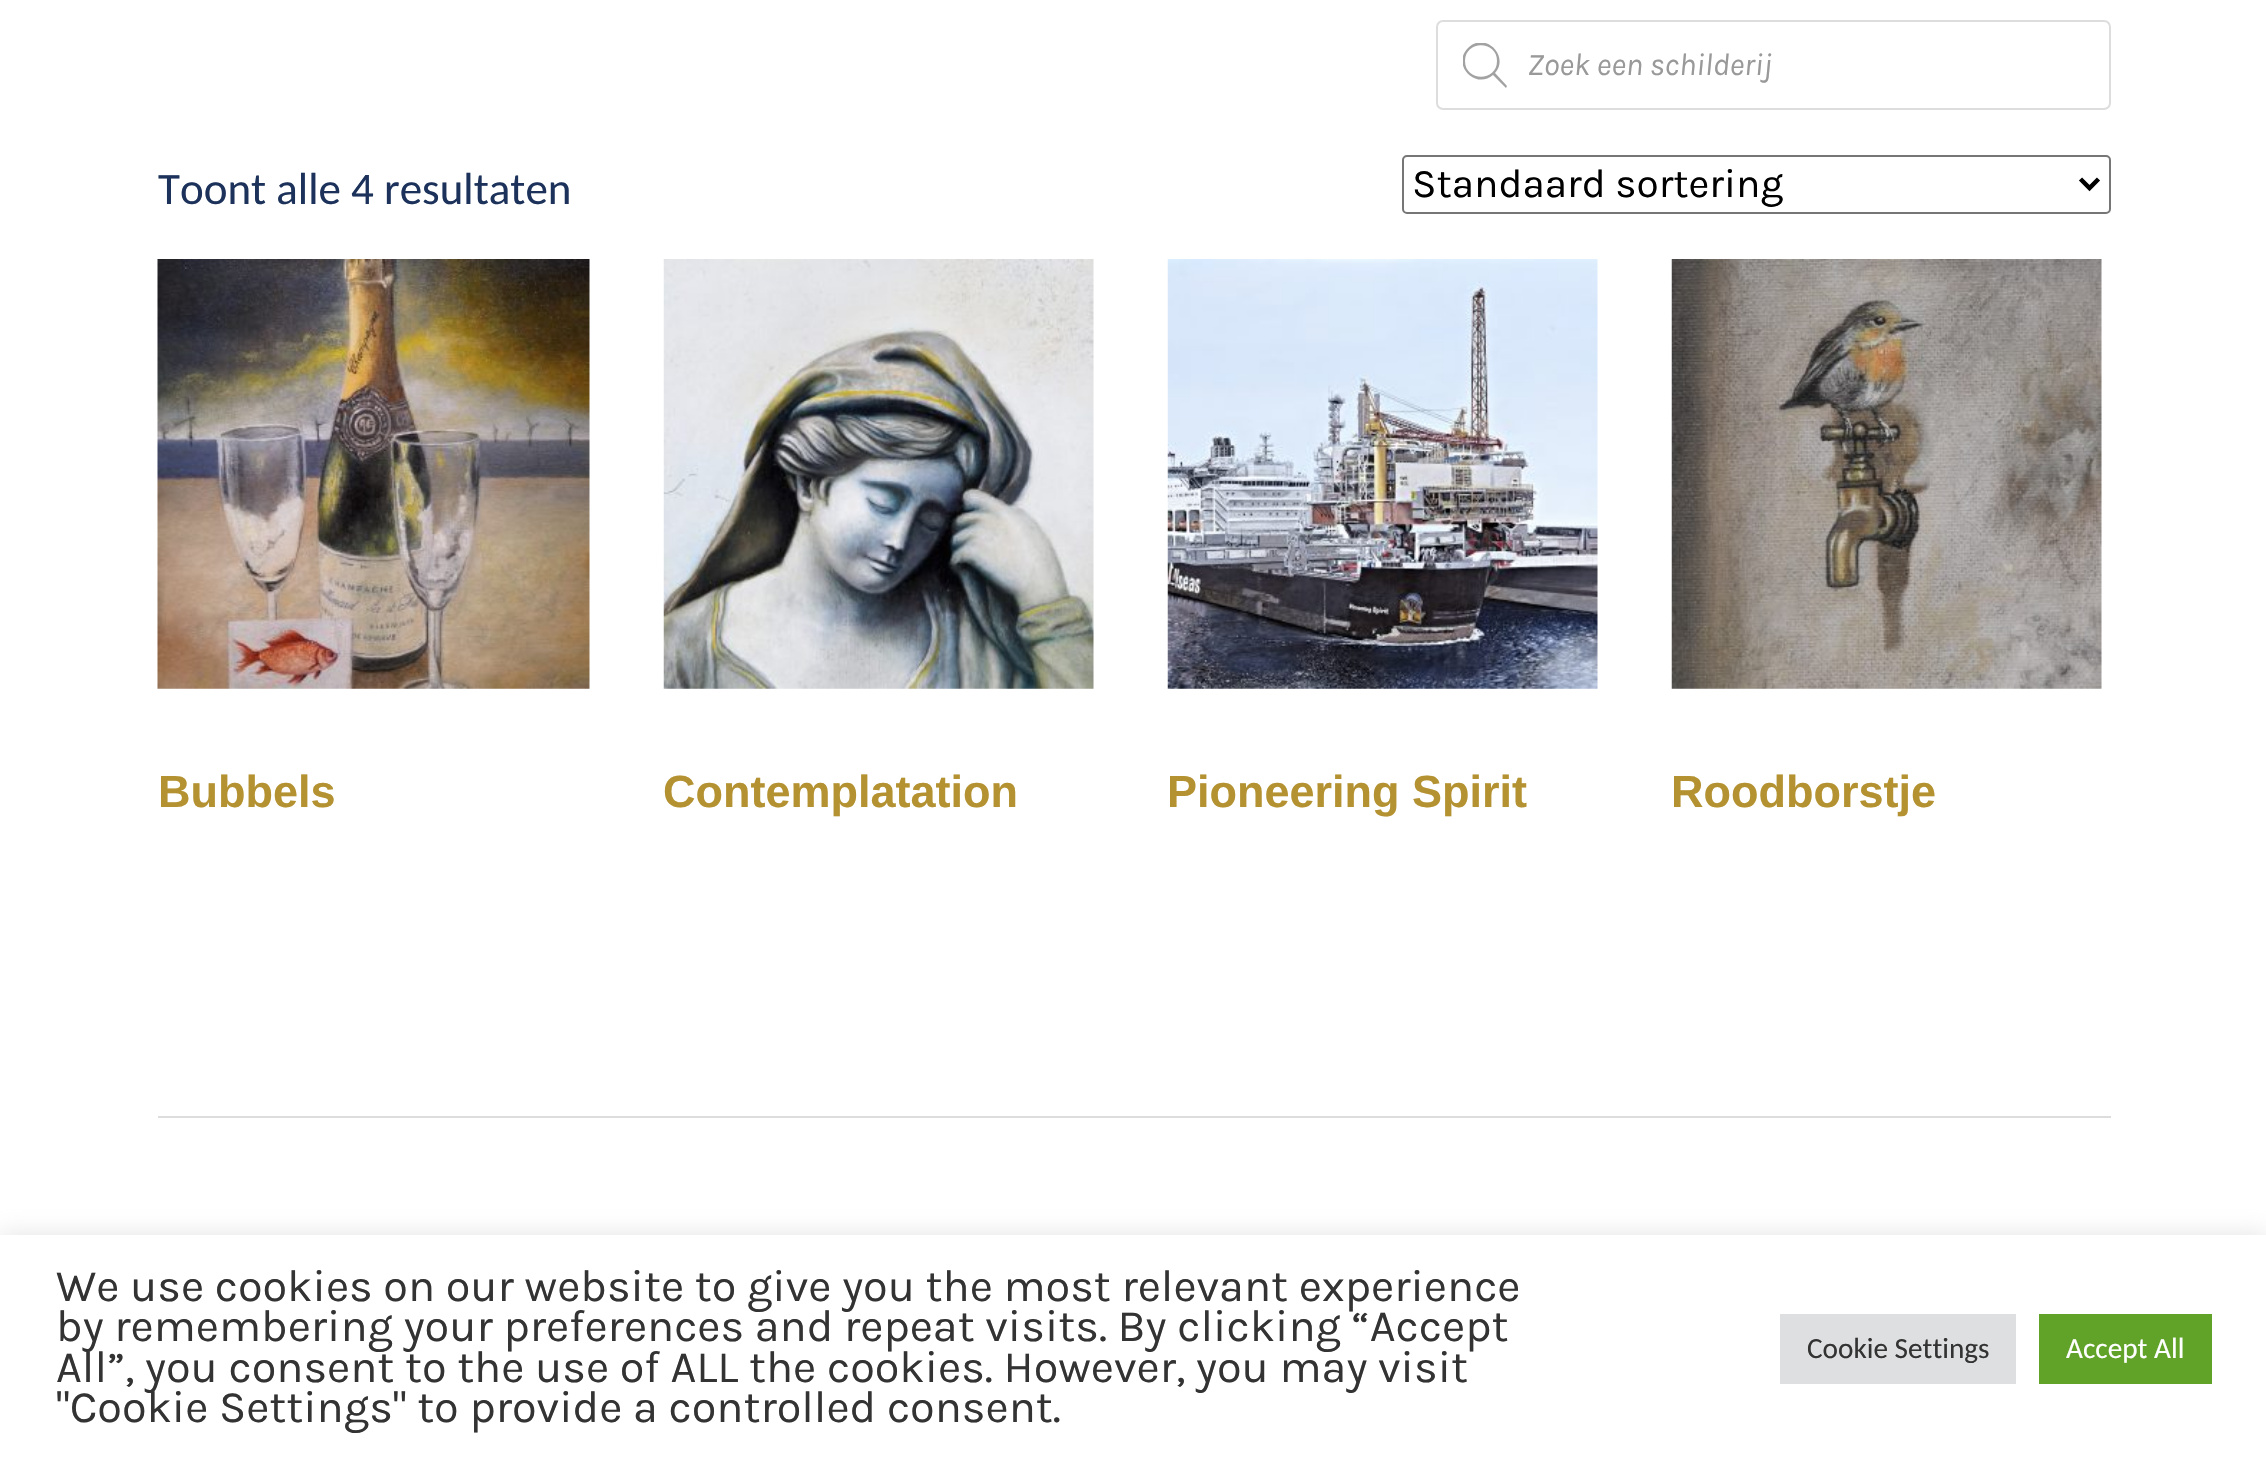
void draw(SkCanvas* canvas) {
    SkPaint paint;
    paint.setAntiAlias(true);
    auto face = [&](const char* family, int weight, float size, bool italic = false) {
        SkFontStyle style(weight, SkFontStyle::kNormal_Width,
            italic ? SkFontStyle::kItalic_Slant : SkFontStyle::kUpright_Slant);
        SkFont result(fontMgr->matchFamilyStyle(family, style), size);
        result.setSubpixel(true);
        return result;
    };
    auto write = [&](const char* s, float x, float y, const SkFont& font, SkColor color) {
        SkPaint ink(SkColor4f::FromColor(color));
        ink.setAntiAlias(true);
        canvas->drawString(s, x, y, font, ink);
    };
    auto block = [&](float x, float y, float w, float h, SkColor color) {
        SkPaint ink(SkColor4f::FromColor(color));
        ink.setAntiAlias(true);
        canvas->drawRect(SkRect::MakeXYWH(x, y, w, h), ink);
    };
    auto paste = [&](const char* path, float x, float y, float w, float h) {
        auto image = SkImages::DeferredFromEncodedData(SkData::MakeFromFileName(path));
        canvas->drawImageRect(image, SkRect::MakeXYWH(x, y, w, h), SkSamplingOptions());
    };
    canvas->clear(SK_ColorWHITE);
    paint.setStyle(SkPaint::kStroke_Style);
    paint.setStrokeWidth(2);
    paint.setColor(SkColorSetRGB(221, 221, 221));
    canvas->drawRoundRect(SkRect::MakeXYWH(1437, 21, 673, 88), 6, 6, paint);
    canvas->save();
    canvas->clipRect(SkRect::MakeXYWH(1463, 43, 45, 45));
    paint.setStyle(SkPaint::kFill_Style);
    paint.setColor(SkColorSetRGB(162, 162, 162));
    canvas->drawPath(SkPathBuilder().moveTo(1507, 86).lineTo(1495, 73).cubicTo(1510, 56, 1485, 31, 1468, 48).cubicTo(1451, 65, 1476, 90, 1493, 75).lineTo(1506, 88).close().moveTo(1465, 61).cubicTo(1465, 40, 1497, 40, 1497, 61).cubicTo(1497, 82, 1465, 82, 1465, 61).close().detach(), paint);
    canvas->restore();
    auto kFont1 = face("Karla", 400, 31.5f, true);
    write("Zoek een schilderij", 1527, 75, kFont1, SkColorSetRGB(153, 153, 153));
    block(158, 1116, 1953, 2, SkColorSetRGB(221, 221, 221));
    auto kFont2 = face("Carlito", 400, 45);
    write("Toont alle 4 resultaten", 158, 204, kFont2, SkColorSetRGB(28, 50, 90));
    paint.setStyle(SkPaint::kStroke_Style);
    paint.setColor(SkColorSetRGB(118, 118, 118));
    canvas->drawRoundRect(SkRect::MakeXYWH(1403, 156, 707, 57), 4, 4, paint);
    paint.setStrokeWidth(4.5f);
    paint.setColor(SK_ColorBLACK);
    canvas->drawPath(SkPathBuilder().moveTo(2080.5f, 179).lineTo(2089.5f, 188).lineTo(2098.5f, 179).detach(), paint);
    auto kFont3 = face("Karla", 400, 40.5f);
    write("Standaard sortering", 1412, 197, kFont3, SK_ColorBLACK);
    paste("pic1.png", 157, 259, 433, 430);
    auto kFont4 = face("Liberation Sans", 700, 45);
    write("Bubbels", 158, 807, kFont4, SkColorSetRGB(180, 146, 49));
    paste("pic2.png", 663, 259, 431, 430);
    write("Contemplatation", 663, 807, kFont4, SkColorSetRGB(180, 146, 49));
    paste("pic3.png", 1167, 259, 431, 430);
    write("Pioneering Spirit", 1167, 807, kFont4, SkColorSetRGB(180, 146, 49));
    paste("pic4.png", 1671, 259, 431, 430);
    write("Roodborstje", 1671, 807, kFont4, SkColorSetRGB(180, 146, 49));
    paint.setStyle(SkPaint::kFill_Style);
    paint.setColor(SkColorSetARGB(77, 172, 171, 171));
    paint.setMaskFilter(SkMaskFilter::MakeBlur(kNormal_SkBlurStyle, 11));
    canvas->drawRect(SkRect::MakeXYWH(0, 1233, 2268, 225), paint);
    paint.setMaskFilter(nullptr);
    block(0, 1235, 2266, 224, SK_ColorWHITE);
    auto kFont5 = face("Karla", 400, 45);
    write("We use cookies on our website to give you the most relevant experience", 56, 1301, kFont5, SkColorSetRGB(51, 51, 51));
    write("by remembering your preferences and repeat visits. By clicking “Accept", 56, 1341, kFont5, SkColorSetRGB(51, 51, 51));
    write("All”, you consent to the use of ALL the cookies. However, you may visit", 56, 1382, kFont5, SkColorSetRGB(51, 51, 51));
    write("\"Cookie Settings\" to provide a controlled consent.", 56, 1422, kFont5, SkColorSetRGB(51, 51, 51));
    block(1780, 1314, 236, 70, SkColorSetRGB(222, 223, 224));
    auto kFont6 = face("Carlito", 400, 29.25f);
    write("Cookie Settings", 1807, 1358, kFont6, SkColorSetRGB(51, 51, 51));
    block(2039, 1314, 173, 70, SkColorSetRGB(97, 162, 41));
    write("Accept All", 2066, 1358, kFont6, SK_ColorWHITE);
}
